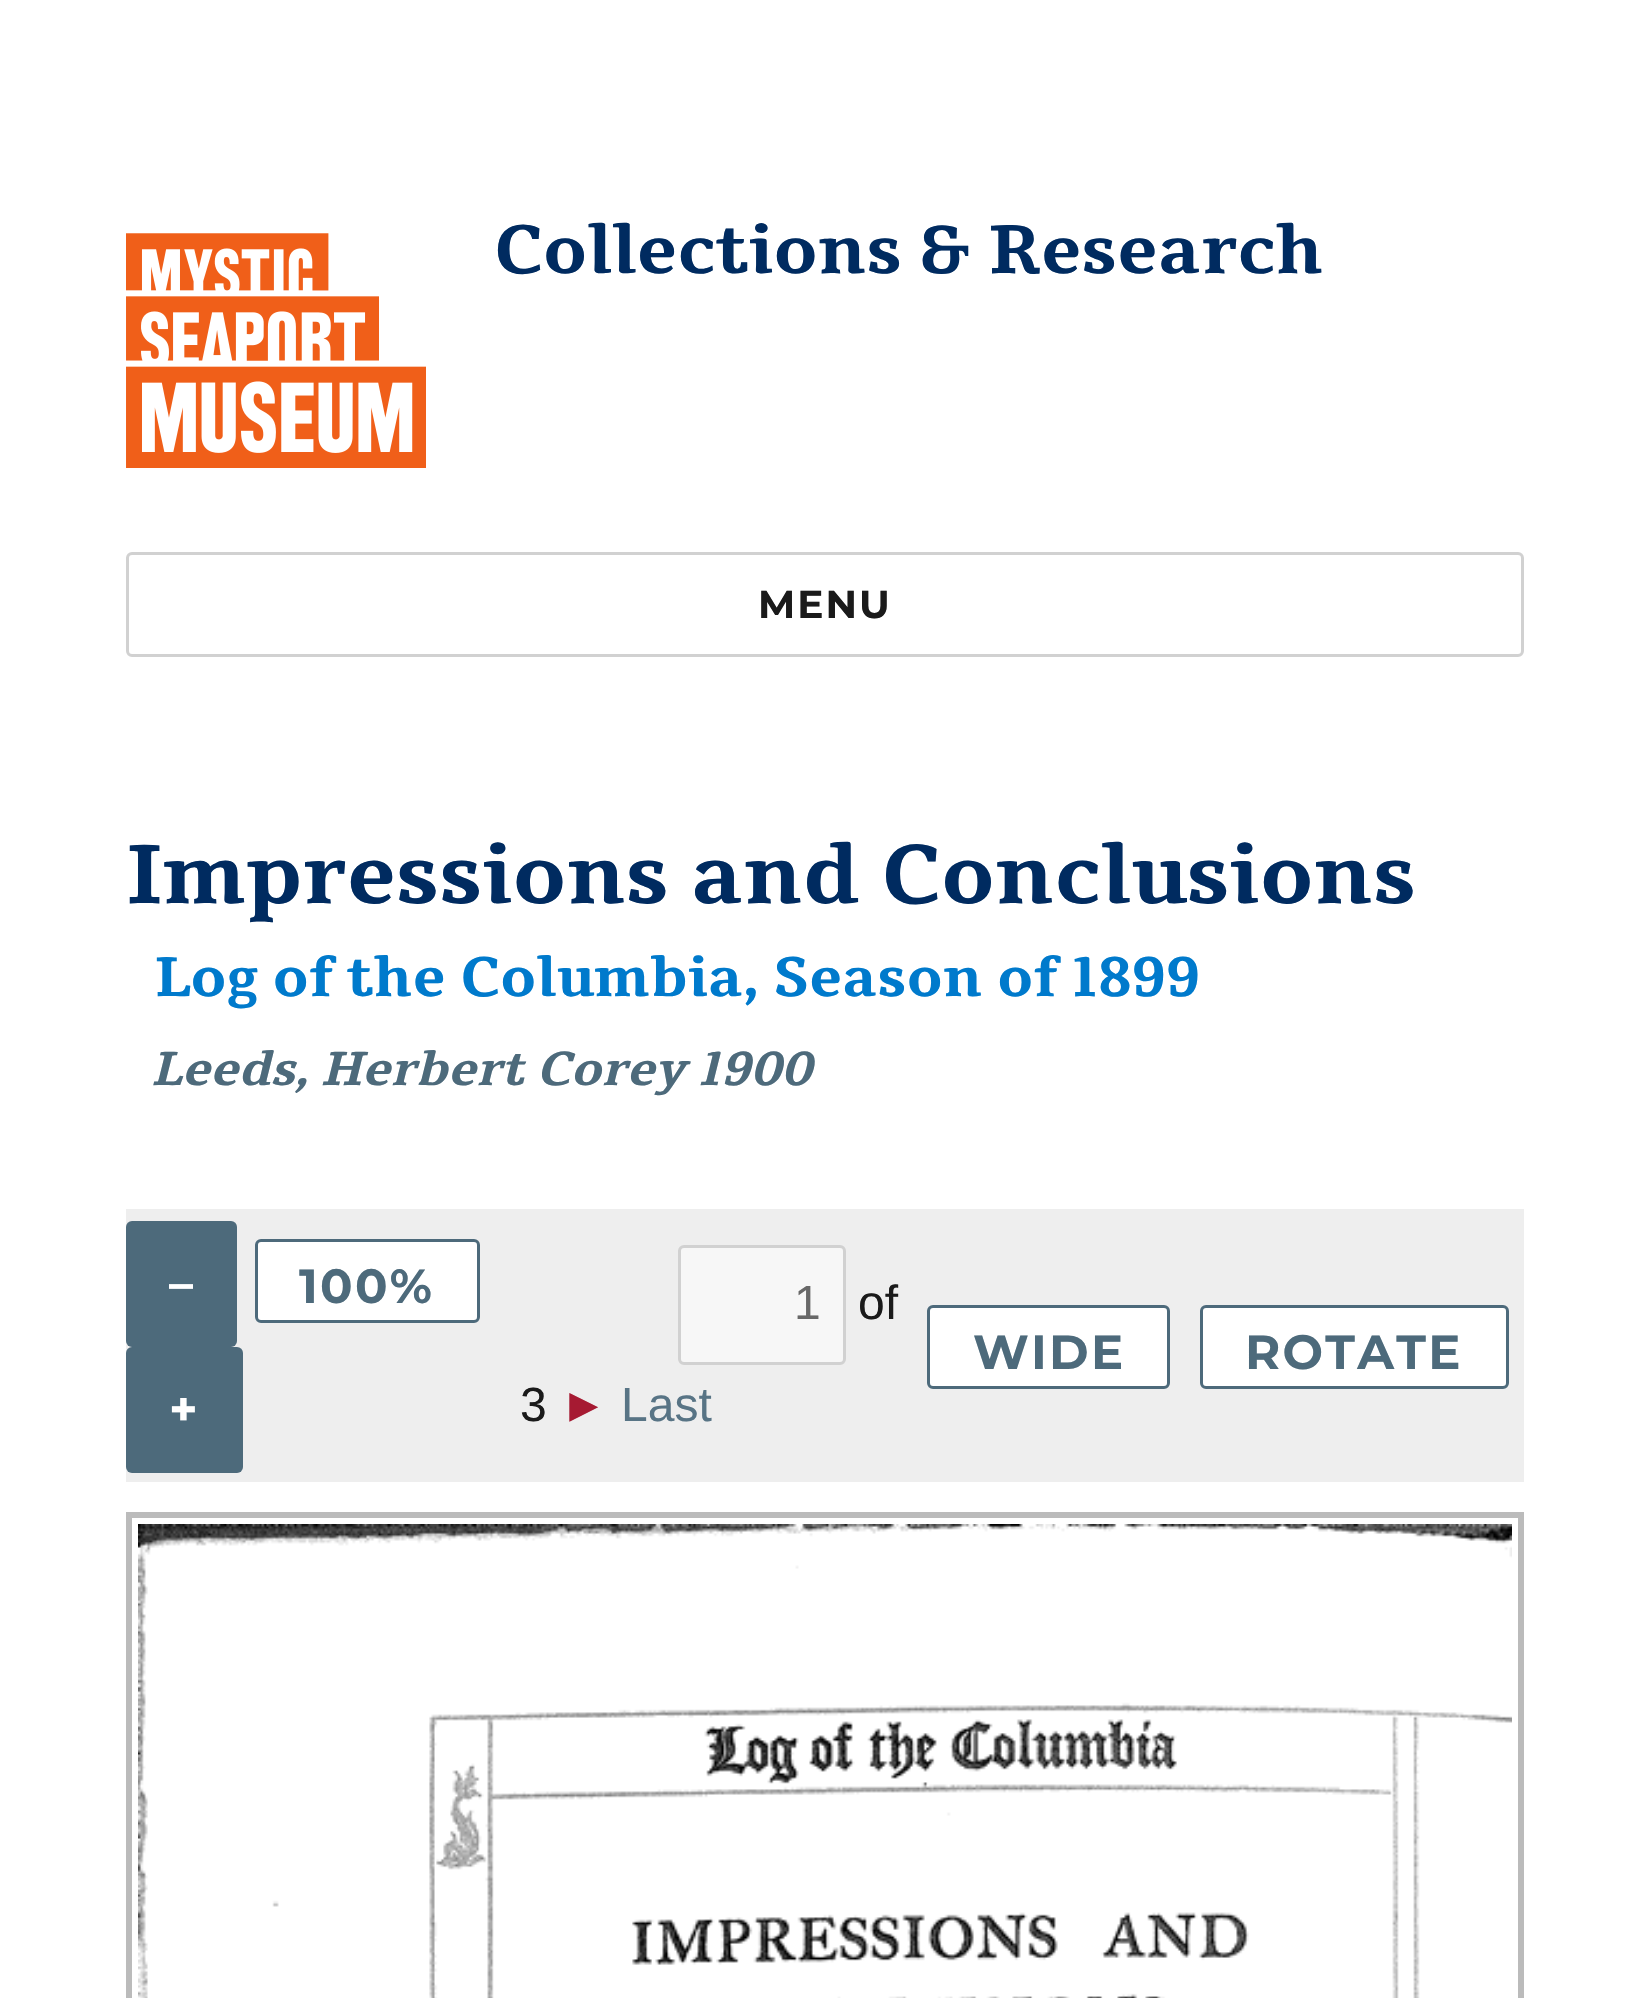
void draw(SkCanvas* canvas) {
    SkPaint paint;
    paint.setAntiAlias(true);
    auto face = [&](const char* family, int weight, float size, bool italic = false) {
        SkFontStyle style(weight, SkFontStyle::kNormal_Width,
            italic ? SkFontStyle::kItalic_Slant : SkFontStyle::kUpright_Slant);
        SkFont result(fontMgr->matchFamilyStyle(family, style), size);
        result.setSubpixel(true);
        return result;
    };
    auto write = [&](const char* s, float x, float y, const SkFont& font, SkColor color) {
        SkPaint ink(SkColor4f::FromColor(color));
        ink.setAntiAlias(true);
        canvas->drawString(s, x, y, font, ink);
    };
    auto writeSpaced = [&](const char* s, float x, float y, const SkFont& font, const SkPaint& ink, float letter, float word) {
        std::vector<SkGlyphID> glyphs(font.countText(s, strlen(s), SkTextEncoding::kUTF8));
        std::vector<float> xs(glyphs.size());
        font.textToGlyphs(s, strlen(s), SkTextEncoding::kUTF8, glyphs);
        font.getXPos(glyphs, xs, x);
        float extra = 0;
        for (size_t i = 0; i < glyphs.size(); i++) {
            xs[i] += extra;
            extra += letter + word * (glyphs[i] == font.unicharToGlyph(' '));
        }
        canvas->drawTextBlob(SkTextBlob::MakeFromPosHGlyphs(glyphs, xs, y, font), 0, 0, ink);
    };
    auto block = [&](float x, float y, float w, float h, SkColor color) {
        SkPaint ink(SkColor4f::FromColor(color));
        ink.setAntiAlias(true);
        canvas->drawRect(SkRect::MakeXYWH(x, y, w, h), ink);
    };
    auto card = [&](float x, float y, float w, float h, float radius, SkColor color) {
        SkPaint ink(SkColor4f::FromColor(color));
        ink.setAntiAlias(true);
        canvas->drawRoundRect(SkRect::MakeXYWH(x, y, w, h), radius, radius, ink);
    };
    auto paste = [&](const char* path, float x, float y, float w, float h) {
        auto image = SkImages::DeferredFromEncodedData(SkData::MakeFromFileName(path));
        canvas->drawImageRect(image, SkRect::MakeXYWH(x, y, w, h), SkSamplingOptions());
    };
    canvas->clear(SK_ColorWHITE);
    paste("pic1.png", 126, 233, 300, 235);
    auto kFont1 = face("Tienne", 700, 69);
    write("Collections & Research", 494, 273, kFont1, SkColorSetRGB(0, 43, 96));
    paint.setStyle(SkPaint::kStroke_Style);
    paint.setStrokeWidth(3);
    paint.setColor(SkColorSetRGB(209, 209, 209));
    canvas->drawRoundRect(SkRect::MakeXYWH(127.5f, 553.5f, 1395, 102), 4.5f, 4.5f, paint);
    auto kFont2 = face("Montserrat", 700, 39);
    paint.setStyle(SkPaint::kFill_Style);
    paint.setColor(SkColorSetRGB(26, 26, 26));
    writeSpaced("MENU", 758, 618, kFont2, paint, 2, 0);
    auto kFont3 = face("Tienne", 700, 84);
    write("Impressions and Conclusions", 127, 903, kFont3, SkColorSetRGB(0, 43, 96));
    auto kFont4 = face("Tienne", 700, 56.2f);
    write("Log of the Columbia, Season of 1899", 155, 996, kFont4, SkColorSetRGB(0, 122, 204));
    auto kFont5 = face("Tienne", 700, 48, true);
    write("Leeds, Herbert Corey 1900", 151, 1085, kFont5, SkColorSetRGB(77, 106, 123));
    block(126, 1209, 1398, 273, SkColorSetRGB(238, 238, 238));
    card(126, 1221, 111, 126, 6, SkColorSetRGB(77, 106, 123));
    auto kFont6 = face("Montserrat", 700, 48);
    paint.setColor(SK_ColorWHITE);
    writeSpaced("–", 169, 1300, kFont6, paint, 2.25f, 0);
    canvas->drawRoundRect(SkRect::MakeXYWH(256.5f, 1240.5f, 222, 81), 4.5f, 4.5f, paint);
    paint.setStyle(SkPaint::kStroke_Style);
    paint.setColor(SkColorSetRGB(77, 106, 123));
    canvas->drawRoundRect(SkRect::MakeXYWH(256.5f, 1240.5f, 222, 81), 4.5f, 4.5f, paint);
    paint.setStyle(SkPaint::kFill_Style);
    writeSpaced("100%", 299, 1303, kFont6, paint, 2.25f, 0);
    card(126, 1347, 117, 126, 6, SkColorSetRGB(77, 106, 123));
    paint.setColor(SK_ColorWHITE);
    writeSpaced("+", 169, 1426, kFont6, paint, 2.25f, 0);
    paint.setColor(SkColorSetRGB(247, 247, 247));
    canvas->drawRoundRect(SkRect::MakeXYWH(679.5f, 1246.5f, 165, 117), 4.5f, 4.5f, paint);
    paint.setStyle(SkPaint::kStroke_Style);
    paint.setColor(SkColorSetRGB(209, 209, 209));
    canvas->drawRoundRect(SkRect::MakeXYWH(679.5f, 1246.5f, 165, 117), 4.5f, 4.5f, paint);
    auto kFont7 = face("Liberation Sans", 400, 48);
    write("1", 794, 1319, kFont7, SkColorSetRGB(104, 104, 104));
    write("of", 858, 1319, kFont7, SkColorSetRGB(26, 26, 26));
    write("3", 520, 1421, kFont7, SkColorSetRGB(26, 26, 26));
    write("►", 560, 1421, kFont7, SkColorSetRGB(166, 26, 50));
    write("Last", 621, 1421, kFont7, SkColorSetRGB(88, 116, 133));
    paint.setStyle(SkPaint::kFill_Style);
    paint.setColor(SK_ColorWHITE);
    canvas->drawRoundRect(SkRect::MakeXYWH(928.5f, 1306.5f, 240, 81), 4.5f, 4.5f, paint);
    paint.setStyle(SkPaint::kStroke_Style);
    paint.setColor(SkColorSetRGB(77, 106, 123));
    canvas->drawRoundRect(SkRect::MakeXYWH(928.5f, 1306.5f, 240, 81), 4.5f, 4.5f, paint);
    paint.setStyle(SkPaint::kFill_Style);
    writeSpaced("WIDE", 973, 1369, kFont6, paint, 2.25f, 0);
    paint.setColor(SK_ColorWHITE);
    canvas->drawRoundRect(SkRect::MakeXYWH(1201.5f, 1306.5f, 306, 81), 4.5f, 4.5f, paint);
    paint.setStyle(SkPaint::kStroke_Style);
    paint.setColor(SkColorSetRGB(77, 106, 123));
    canvas->drawRoundRect(SkRect::MakeXYWH(1201.5f, 1306.5f, 306, 81), 4.5f, 4.5f, paint);
    paint.setStyle(SkPaint::kFill_Style);
    writeSpaced("ROTATE", 1245, 1369, kFont6, paint, 2.25f, 0);
    paint.setStyle(SkPaint::kStroke_Style);
    paint.setStrokeWidth(6);
    paint.setColor(SkColorSetRGB(187, 187, 187));
    canvas->drawRect(SkRect::MakeXYWH(129, 1515, 1392, 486), paint);
    paste("pic2.png", 138, 1524, 1374, 474);
}
